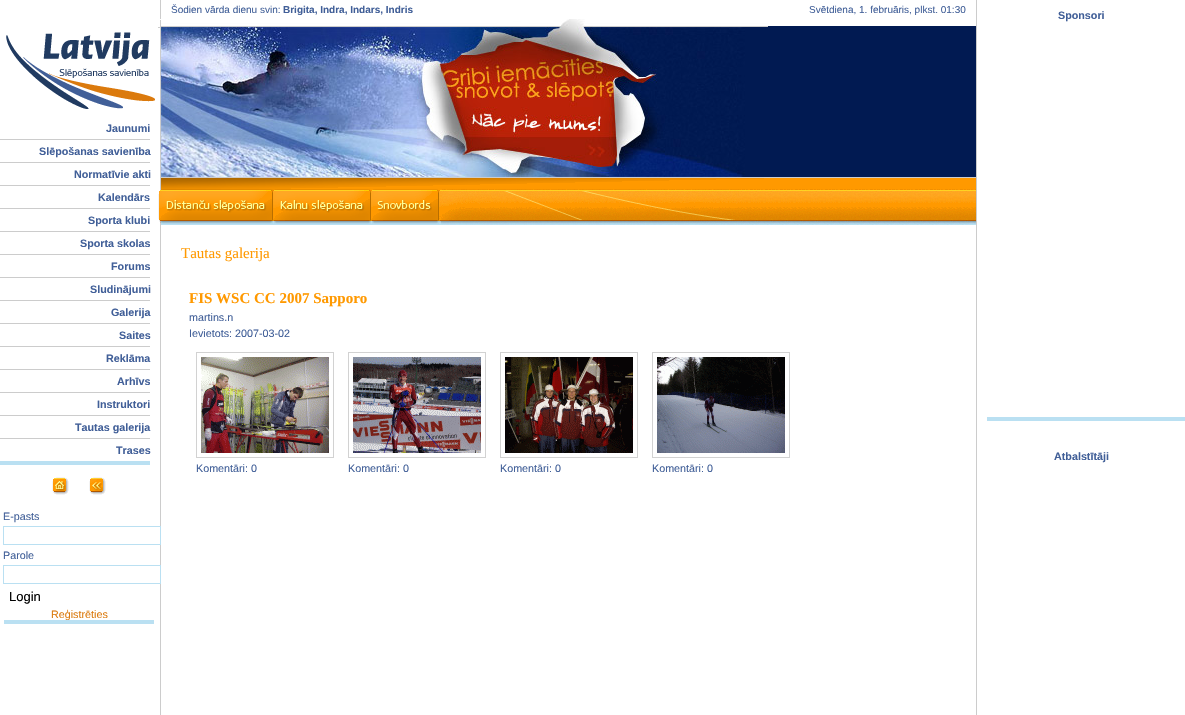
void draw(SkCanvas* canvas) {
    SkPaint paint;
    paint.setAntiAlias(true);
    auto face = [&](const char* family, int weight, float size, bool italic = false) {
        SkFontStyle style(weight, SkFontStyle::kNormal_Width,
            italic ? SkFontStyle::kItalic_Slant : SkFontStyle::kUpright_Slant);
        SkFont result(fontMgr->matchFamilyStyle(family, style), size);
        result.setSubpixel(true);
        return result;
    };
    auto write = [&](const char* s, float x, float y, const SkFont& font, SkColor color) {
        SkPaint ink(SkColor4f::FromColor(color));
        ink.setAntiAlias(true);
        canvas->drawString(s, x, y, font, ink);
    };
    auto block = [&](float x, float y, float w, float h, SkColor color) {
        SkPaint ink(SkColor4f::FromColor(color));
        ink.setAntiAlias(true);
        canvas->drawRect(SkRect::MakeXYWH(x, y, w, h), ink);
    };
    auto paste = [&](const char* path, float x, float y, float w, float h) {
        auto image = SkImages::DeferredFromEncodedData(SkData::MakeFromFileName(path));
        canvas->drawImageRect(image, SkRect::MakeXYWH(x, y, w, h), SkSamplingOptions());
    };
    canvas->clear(SK_ColorWHITE);
    paste("pic1.png", 6, 32, 149, 77);
    auto kFont1 = face("Liberation Sans", 700, 10.75f);
    write("Jaunumi", 106, 132, kFont1, SkColorSetRGB(65, 95, 152));
    block(0, 139, 150, 1, SkColorSetRGB(204, 204, 204));
    write("Slēpošanas savienība", 39, 155, kFont1, SkColorSetRGB(65, 95, 152));
    block(0, 162, 150, 1, SkColorSetRGB(204, 204, 204));
    write("Normatīvie akti", 74, 178, kFont1, SkColorSetRGB(65, 95, 152));
    block(0, 185, 150, 1, SkColorSetRGB(204, 204, 204));
    write("Kalendārs", 98, 201, kFont1, SkColorSetRGB(65, 95, 152));
    block(0, 208, 150, 1, SkColorSetRGB(204, 204, 204));
    write("Sporta klubi", 88, 224, kFont1, SkColorSetRGB(65, 95, 152));
    block(0, 231, 150, 1, SkColorSetRGB(204, 204, 204));
    write("Sporta skolas", 80, 247, kFont1, SkColorSetRGB(65, 95, 152));
    block(0, 254, 150, 1, SkColorSetRGB(204, 204, 204));
    write("Forums", 111, 270, kFont1, SkColorSetRGB(65, 95, 152));
    block(0, 277, 150, 1, SkColorSetRGB(204, 204, 204));
    write("Sludinājumi", 90, 293, kFont1, SkColorSetRGB(65, 95, 152));
    block(0, 300, 150, 1, SkColorSetRGB(204, 204, 204));
    write("Galerija", 111, 316, kFont1, SkColorSetRGB(65, 95, 152));
    block(0, 323, 150, 1, SkColorSetRGB(204, 204, 204));
    write("Saites", 119, 339, kFont1, SkColorSetRGB(65, 95, 152));
    block(0, 346, 150, 1, SkColorSetRGB(204, 204, 204));
    write("Reklāma", 106, 362, kFont1, SkColorSetRGB(65, 95, 152));
    block(0, 369, 150, 1, SkColorSetRGB(204, 204, 204));
    write("Arhīvs", 117, 385, kFont1, SkColorSetRGB(65, 95, 152));
    block(0, 392, 150, 1, SkColorSetRGB(204, 204, 204));
    write("Instruktori", 97, 408, kFont1, SkColorSetRGB(65, 95, 152));
    block(0, 415, 150, 1, SkColorSetRGB(204, 204, 204));
    write("Tautas galerija", 75, 431, kFont1, SkColorSetRGB(65, 95, 152));
    block(0, 438, 150, 1, SkColorSetRGB(204, 204, 204));
    write("Trases", 116, 454, kFont1, SkColorSetRGB(65, 95, 152));
    block(0, 461, 150, 4, SkColorSetRGB(186, 224, 242));
    paste("pic2.png", 52, 477, 17, 18);
    paste("pic3.png", 89, 477, 17, 18);
    auto kFont2 = face("Liberation Sans", 400, 10.75f);
    write("E-pasts", 3, 520, kFont2, SkColorSetRGB(65, 95, 152));
    block(160, 225, 1, 490, SkColorSetRGB(204, 204, 204));
    paint.setStyle(SkPaint::kStroke_Style);
    paint.setStrokeWidth(1);
    paint.setColor(SkColorSetRGB(186, 224, 242));
    canvas->drawRect(SkRect::MakeXYWH(3.5f, 526.5f, 157, 18), paint);
    write("Parole", 3, 559, kFont2, SkColorSetRGB(65, 95, 152));
    canvas->drawRect(SkRect::MakeXYWH(3.5f, 565.5f, 157, 18), paint);
    auto kFont3 = face("Liberation Sans", 400, 13);
    write("Login", 9, 601, kFont3, SK_ColorBLACK);
    write("Reģistrēties", 51, 618, kFont2, SkColorSetRGB(219, 122, 13));
    block(4, 620, 150, 4, SkColorSetRGB(186, 224, 242));
    block(976, 0, 1, 715, SkColorSetRGB(204, 204, 204));
    block(160, 0, 1, 19, SkColorSetRGB(204, 204, 204));
    auto kFont4 = face("Liberation Sans", 400, 10);
    write("Šodien vārda dienu svin:", 171, 13, kFont4, SkColorSetRGB(65, 95, 152));
    auto kFont5 = face("Liberation Sans", 700, 10);
    write("Brigita, Indra, Indars, Indris", 283, 13, kFont5, SkColorSetRGB(65, 95, 152));
    write("Svētdiena, 1. februāris, plkst. 01:30", 809, 13, kFont4, SkColorSetRGB(65, 95, 152));
    paste("pic4.png", 158, 20, 3, 158);
    block(768, 26, 208, 151, SkColorSetRGB(1, 26, 82));
    block(161, 177, 815, 1, SkColorSetRGB(204, 204, 204));
    paste("pic5.png", 161, 19, 607, 158);
    block(764, 178, 212, 11, SkColorSetRGB(255, 153, 0));
    paste("pic6.png", 158, 178, 606, 11);
    paste("pic7.png", 158, 189, 115, 36);
    paste("pic8.png", 273, 189, 98, 36);
    paste("pic9.png", 371, 189, 68, 36);
    paste("pic10.png", 741, 189, 235, 36);
    paste("pic11.png", 439, 189, 302, 36);
    auto kFont6 = face("Liberation Serif", 400, 15);
    write("Tautas galerija", 181, 258, kFont6, SkColorSetRGB(255, 153, 0));
    auto kFont7 = face("Liberation Serif", 700, 15);
    write("FIS WSC CC 2007 Sapporo", 189, 303, kFont7, SkColorSetRGB(255, 153, 0));
    write("martins.n", 189, 321, kFont2, SkColorSetRGB(65, 95, 152));
    write("Ievietots: 2007-03-02", 189, 337, kFont2, SkColorSetRGB(65, 95, 152));
    paint.setColor(SkColorSetRGB(210, 210, 210));
    canvas->drawRect(SkRect::MakeXYWH(196.5f, 352.5f, 137, 105), paint);
    paste("pic12.png", 201, 357, 128, 96);
    write("Komentāri: 0", 196, 472, kFont2, SkColorSetRGB(65, 95, 152));
    canvas->drawRect(SkRect::MakeXYWH(348.5f, 352.5f, 137, 105), paint);
    paste("pic13.png", 353, 357, 128, 96);
    write("Komentāri: 0", 348, 472, kFont2, SkColorSetRGB(65, 95, 152));
    canvas->drawRect(SkRect::MakeXYWH(500.5f, 352.5f, 137, 105), paint);
    paste("pic14.png", 505, 357, 128, 96);
    write("Komentāri: 0", 500, 472, kFont2, SkColorSetRGB(65, 95, 152));
    canvas->drawRect(SkRect::MakeXYWH(652.5f, 352.5f, 137, 105), paint);
    paste("pic15.png", 657, 357, 128, 96);
    write("Komentāri: 0", 652, 472, kFont2, SkColorSetRGB(65, 95, 152));
    write("Sponsori", 1058, 19, kFont1, SkColorSetRGB(65, 95, 152));
    block(987, 417, 198, 4, SkColorSetRGB(186, 224, 242));
    write("Atbalstītāji", 1054, 460, kFont1, SkColorSetRGB(65, 95, 152));
}
